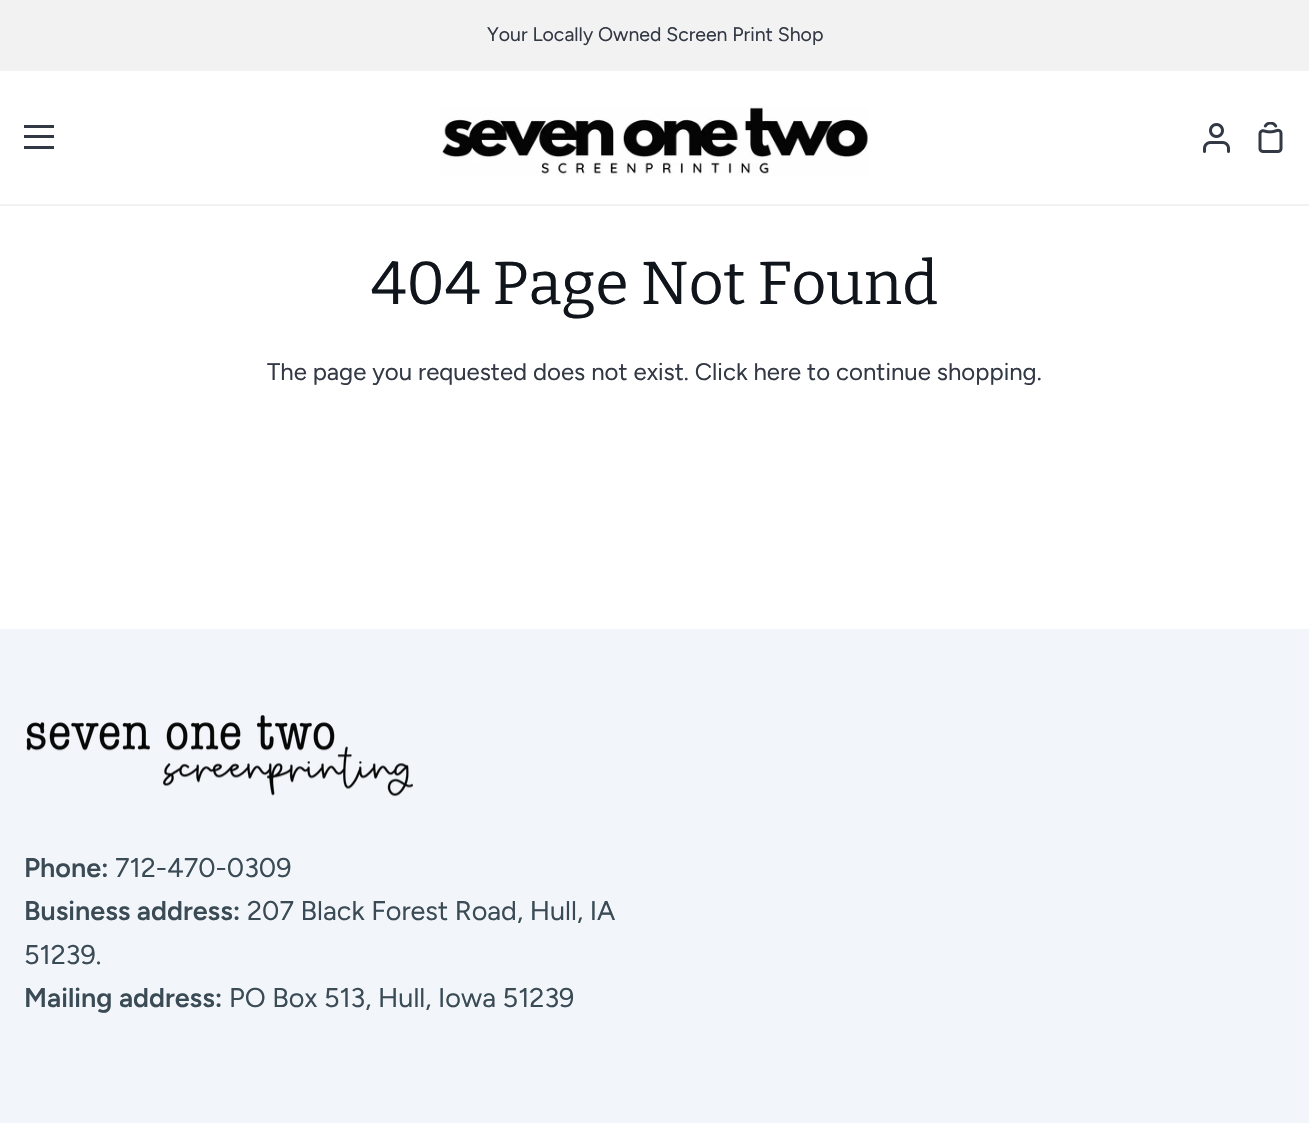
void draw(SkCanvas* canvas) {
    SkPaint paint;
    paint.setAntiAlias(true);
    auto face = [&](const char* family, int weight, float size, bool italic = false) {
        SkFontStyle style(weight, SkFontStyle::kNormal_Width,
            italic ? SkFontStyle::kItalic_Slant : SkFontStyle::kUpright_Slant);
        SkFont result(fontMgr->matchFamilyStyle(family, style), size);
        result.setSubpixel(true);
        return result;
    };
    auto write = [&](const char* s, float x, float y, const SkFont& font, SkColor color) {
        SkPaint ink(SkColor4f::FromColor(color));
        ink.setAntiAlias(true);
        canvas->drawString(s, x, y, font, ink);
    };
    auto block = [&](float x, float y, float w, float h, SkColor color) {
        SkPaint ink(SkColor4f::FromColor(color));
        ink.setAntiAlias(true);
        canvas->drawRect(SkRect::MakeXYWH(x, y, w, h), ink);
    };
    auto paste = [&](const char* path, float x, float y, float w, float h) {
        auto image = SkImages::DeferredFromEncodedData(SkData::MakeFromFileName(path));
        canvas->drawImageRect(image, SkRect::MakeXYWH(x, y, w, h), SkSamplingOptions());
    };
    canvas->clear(SK_ColorWHITE);
    block(0, 204, 1309, 2, SkColorSetRGB(242, 242, 242));
    block(0, 0, 1309, 71, SkColorSetRGB(242, 242, 242));
    auto kFont1 = face("Figtree", 400, 19.5f);
    write("Your Locally Owned Screen Print Shop", 487, 41, kFont1, SkColorSetRGB(50, 57, 69));
    block(24, 125, 30, 3, SkColorSetRGB(50, 57, 69));
    block(24, 135, 30, 3, SkColorSetRGB(50, 57, 69));
    block(24, 146, 30, 3, SkColorSetRGB(50, 57, 69));
    paste("pic1.png", 441, 107, 428, 69);
    paste("pic2.png", 1203, 123, 27, 30);
    paste("pic3.png", 1258, 122, 25, 31);
    auto kFont2 = face("Bitter", 400, 60.5f);
    write("404 Page Not Found", 371, 304, kFont2, SkColorSetRGB(16, 20, 27));
    auto kFont3 = face("Figtree", 400, 24);
    write("The page you requested does not exist. Click here to continue shopping.", 267, 380, kFont3, SkColorSetRGB(50, 57, 69));
    block(0, 629, 1309, 494, SkColorSetRGB(242, 245, 250));
    paste("pic4.png", 26, 715, 387, 82);
    auto kFont4 = face("Figtree", 600, 27);
    write("Phone:", 24, 877, kFont4, SkColorSetRGB(58, 75, 85));
    auto kFont5 = face("Figtree", 400, 27);
    write("712-470-0309", 115, 877, kFont5, SkColorSetRGB(58, 75, 85));
    write("Business address:", 24, 920, kFont4, SkColorSetRGB(58, 75, 85));
    write("207 Black Forest Road, Hull, IA", 247, 920, kFont5, SkColorSetRGB(58, 75, 85));
    write("51239.", 24, 964, kFont5, SkColorSetRGB(58, 75, 85));
    write("Mailing address:", 24, 1007, kFont4, SkColorSetRGB(58, 75, 85));
    write("PO Box 513, Hull, Iowa 51239", 229, 1007, kFont5, SkColorSetRGB(58, 75, 85));
}
